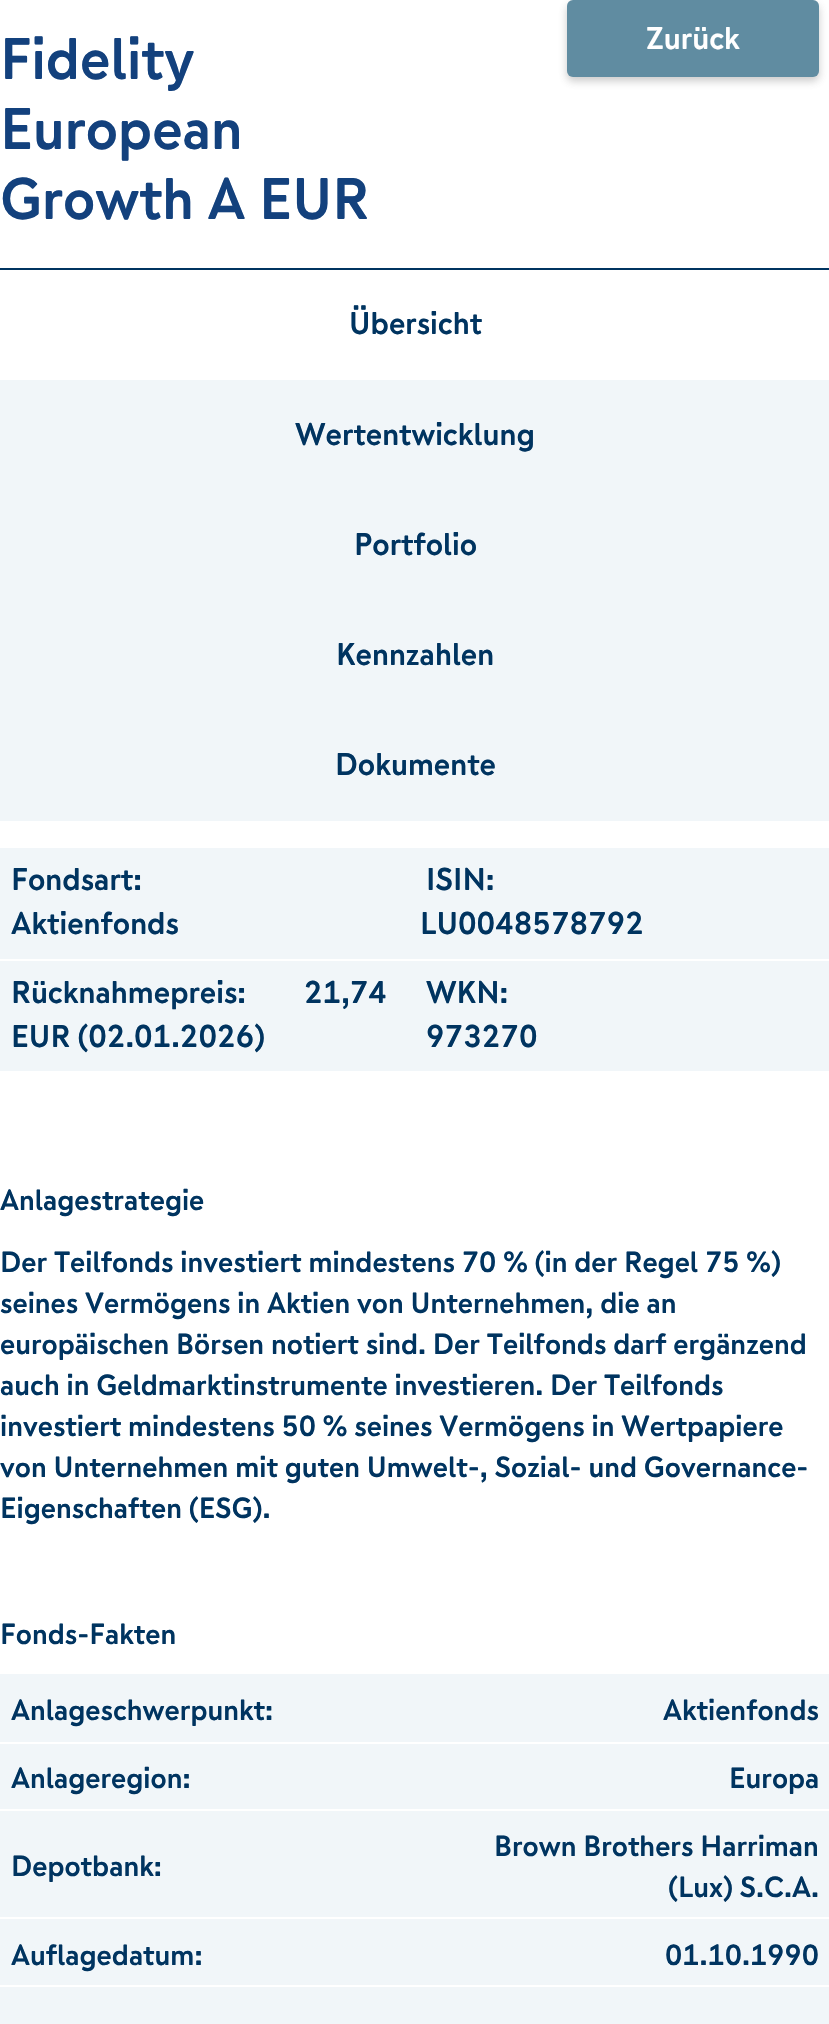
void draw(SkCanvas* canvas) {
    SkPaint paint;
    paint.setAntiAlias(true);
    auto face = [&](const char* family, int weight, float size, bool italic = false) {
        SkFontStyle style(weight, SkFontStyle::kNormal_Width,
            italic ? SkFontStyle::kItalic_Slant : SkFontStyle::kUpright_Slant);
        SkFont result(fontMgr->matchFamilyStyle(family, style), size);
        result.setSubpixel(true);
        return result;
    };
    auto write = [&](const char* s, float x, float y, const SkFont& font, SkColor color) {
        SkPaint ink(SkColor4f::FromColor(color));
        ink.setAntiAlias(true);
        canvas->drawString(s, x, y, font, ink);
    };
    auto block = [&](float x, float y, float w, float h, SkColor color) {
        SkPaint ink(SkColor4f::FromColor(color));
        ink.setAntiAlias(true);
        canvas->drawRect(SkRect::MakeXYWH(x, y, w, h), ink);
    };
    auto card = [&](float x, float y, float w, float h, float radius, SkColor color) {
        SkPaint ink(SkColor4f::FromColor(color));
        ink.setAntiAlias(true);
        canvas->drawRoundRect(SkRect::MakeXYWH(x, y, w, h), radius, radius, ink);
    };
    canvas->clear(SK_ColorWHITE);
    auto kFont1 = face("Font", 700, 58.5f);
    write("Fidelity", 0, 79, kFont1, SkColorSetRGB(19, 65, 125));
    write("European", 0, 149, kFont1, SkColorSetRGB(19, 65, 125));
    write("Growth A EUR", 0, 219, kFont1, SkColorSetRGB(19, 65, 125));
    paint.setColor(SkColorSetARGB(77, 75, 75, 75));
    paint.setMaskFilter(SkMaskFilter::MakeBlur(kNormal_SkBlurStyle, 4.5f));
    canvas->drawRoundRect(SkRect::MakeXYWH(567, 5, 252, 76), 6, 6, paint);
    paint.setMaskFilter(nullptr);
    card(567, 0, 252, 77, 6, SkColorSetRGB(96, 140, 161));
    auto kFont2 = face("Font", 700, 31.5f);
    write("Zurück", 646, 49, kFont2, SK_ColorWHITE);
    block(0, 380, 829, 441, SkColorSetRGB(241, 246, 249));
    block(0, 268, 829, 2, SkColorSetRGB(0, 52, 96));
    write("Übersicht", 349, 334, kFont2, SkColorSetRGB(0, 52, 96));
    write("Wertentwicklung", 295, 445, kFont2, SkColorSetRGB(0, 52, 96));
    write("Portfolio", 354, 555, kFont2, SkColorSetRGB(0, 52, 96));
    write("Kennzahlen", 336, 665, kFont2, SkColorSetRGB(0, 52, 96));
    write("Dokumente", 335, 775, kFont2, SkColorSetRGB(0, 52, 96));
    block(0, 848, 829, 223, SkColorSetRGB(241, 246, 249));
    write("Fondsart:", 11, 890, kFont2, SkColorSetRGB(0, 52, 96));
    write("Aktienfonds", 11, 934, kFont2, SkColorSetRGB(0, 52, 96));
    write("ISIN:", 426, 890, kFont2, SkColorSetRGB(0, 52, 96));
    write("LU0048578792", 420, 934, kFont2, SkColorSetRGB(0, 52, 96));
    block(0, 959, 829, 2, SK_ColorWHITE);
    write("Rücknahmepreis:", 11, 1003, kFont2, SkColorSetRGB(0, 52, 96));
    write("21,74", 304, 1003, kFont2, SkColorSetRGB(0, 52, 96));
    write("EUR (02.01.2026)", 11, 1047, kFont2, SkColorSetRGB(0, 52, 96));
    write("WKN:", 426, 1003, kFont2, SkColorSetRGB(0, 52, 96));
    write("973270", 426, 1047, kFont2, SkColorSetRGB(0, 52, 96));
    auto kFont3 = face("Font", 700, 29.25f);
    write("Anlagestrategie", 0, 1210, kFont3, SkColorSetRGB(0, 52, 96));
    write("Der Teilfonds investiert mindestens 70 % (in der Regel 75 %)", 0, 1272, kFont3, SkColorSetRGB(0, 52, 96));
    write("seines Vermögens in Aktien von Unternehmen, die an", 0, 1313, kFont3, SkColorSetRGB(0, 52, 96));
    write("europäischen Börsen notiert sind. Der Teilfonds darf ergänzend", 0, 1354, kFont3, SkColorSetRGB(0, 52, 96));
    write("auch in Geldmarktinstrumente investieren. Der Teilfonds", 0, 1395, kFont3, SkColorSetRGB(0, 52, 96));
    write("investiert mindestens 50 % seines Vermögens in Wertpapiere", 0, 1436, kFont3, SkColorSetRGB(0, 52, 96));
    write("von Unternehmen mit guten Umwelt-, Sozial- und Governance-", 0, 1477, kFont3, SkColorSetRGB(0, 52, 96));
    write("Eigenschaften (ESG).", 0, 1518, kFont3, SkColorSetRGB(0, 52, 96));
    write("Fonds-Fakten", 0, 1644, kFont3, SkColorSetRGB(0, 52, 96));
    block(0, 1674, 829, 350, SkColorSetRGB(241, 246, 249));
    block(0, 1742, 829, 2, SK_ColorWHITE);
    write("Anlageschwerpunkt:", 11, 1720, kFont3, SkColorSetRGB(0, 52, 96));
    write("Aktienfonds", 663, 1720, kFont3, SkColorSetRGB(0, 52, 96));
    block(0, 1809, 829, 2, SK_ColorWHITE);
    write("Anlageregion:", 11, 1788, kFont3, SkColorSetRGB(0, 52, 96));
    write("Europa", 729, 1788, kFont3, SkColorSetRGB(0, 52, 96));
    block(0, 1917, 829, 2, SK_ColorWHITE);
    write("Depotbank:", 11, 1876, kFont3, SkColorSetRGB(0, 52, 96));
    write("Brown Brothers Harriman", 494, 1856, kFont3, SkColorSetRGB(0, 52, 96));
    write("(Lux) S.C.A.", 668, 1897, kFont3, SkColorSetRGB(0, 52, 96));
    block(0, 1985, 829, 2, SK_ColorWHITE);
    write("Auflagedatum:", 11, 1965, kFont3, SkColorSetRGB(0, 52, 96));
    write("01.10.1990", 665, 1965, kFont3, SkColorSetRGB(0, 52, 96));
}
